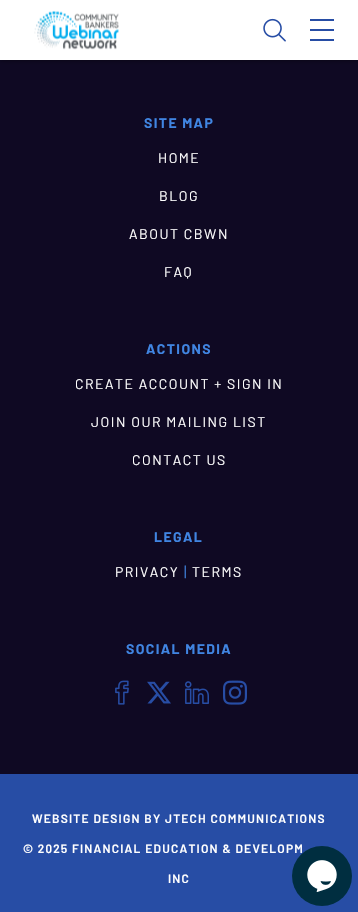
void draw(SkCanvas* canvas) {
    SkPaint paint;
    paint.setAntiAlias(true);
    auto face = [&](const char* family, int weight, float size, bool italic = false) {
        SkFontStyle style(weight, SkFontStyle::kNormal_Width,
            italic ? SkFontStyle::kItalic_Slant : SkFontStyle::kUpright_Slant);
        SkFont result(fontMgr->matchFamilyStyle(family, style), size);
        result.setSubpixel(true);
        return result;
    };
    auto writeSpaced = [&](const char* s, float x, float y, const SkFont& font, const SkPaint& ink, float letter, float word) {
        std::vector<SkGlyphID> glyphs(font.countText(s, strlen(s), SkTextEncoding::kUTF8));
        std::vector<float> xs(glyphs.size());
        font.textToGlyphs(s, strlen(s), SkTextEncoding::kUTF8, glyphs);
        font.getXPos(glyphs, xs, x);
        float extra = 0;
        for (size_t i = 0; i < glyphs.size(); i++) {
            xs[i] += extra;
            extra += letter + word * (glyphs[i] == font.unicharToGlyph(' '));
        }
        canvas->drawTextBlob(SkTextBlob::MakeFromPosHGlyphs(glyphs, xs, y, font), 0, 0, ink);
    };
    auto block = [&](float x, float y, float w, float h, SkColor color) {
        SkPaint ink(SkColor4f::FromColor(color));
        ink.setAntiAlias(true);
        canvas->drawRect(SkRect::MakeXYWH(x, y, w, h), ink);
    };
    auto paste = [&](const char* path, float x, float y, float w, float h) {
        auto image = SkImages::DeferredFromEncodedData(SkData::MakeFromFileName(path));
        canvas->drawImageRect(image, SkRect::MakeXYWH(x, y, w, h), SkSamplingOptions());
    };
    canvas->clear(SkColorSetRGB(15, 9, 35));
    paint.setColor(SkColorSetARGB(128, 0, 0, 0));
    paint.setMaskFilter(SkMaskFilter::MakeBlur(kNormal_SkBlurStyle, 2.5f));
    canvas->drawRect(SkRect::MakeXYWH(0, 0, 358, 60), paint);
    paint.setMaskFilter(nullptr);
    block(0, 0, 358, 60, SK_ColorWHITE);
    paste("pic1.png", 34, 10, 85, 40);
    paste("pic2.png", 263, 18, 23, 24);
    block(310, 19, 24, 2, SkColorSetRGB(39, 77, 165));
    block(310, 29, 24, 2, SkColorSetRGB(39, 77, 165));
    block(310, 39, 24, 2, SkColorSetRGB(39, 77, 165));
    auto kFont1 = face("Barlow", 700, 14);
    paint.setColor(SkColorSetRGB(64, 133, 226));
    writeSpaced("SITE MAP", 144, 128, kFont1, paint, 1.4f, 0);
    auto kFont2 = face("Barlow", 400, 14);
    paint.setColor(SK_ColorWHITE);
    writeSpaced("HOME", 158, 163, kFont2, paint, 1.5f, 0);
    writeSpaced("BLOG", 159, 201, kFont2, paint, 1.5f, 0);
    writeSpaced("ABOUT CBWN", 129, 239, kFont2, paint, 1.5f, 0);
    writeSpaced("FAQ", 164, 277, kFont2, paint, 1.5f, 0);
    paint.setColor(SkColorSetRGB(64, 133, 226));
    writeSpaced("ACTIONS", 146, 354, kFont1, paint, 1.4f, 0);
    paint.setColor(SK_ColorWHITE);
    writeSpaced("CREATE ACCOUNT + SIGN IN", 75, 389, kFont2, paint, 1.5f, 0);
    writeSpaced("JOIN OUR MAILING LIST", 91, 427, kFont2, paint, 1.5f, 0);
    writeSpaced("CONTACT US", 132, 465, kFont2, paint, 1.5f, 0);
    paint.setColor(SkColorSetRGB(64, 133, 226));
    writeSpaced("LEGAL", 154, 542, kFont1, paint, 1.4f, 0);
    paint.setColor(SK_ColorWHITE);
    writeSpaced("PRIVACY", 115, 577, kFont2, paint, 1.5f, 0);
    auto kFont3 = face("Barlow", 400, 15);
    paint.setColor(SkColorSetRGB(64, 133, 226));
    writeSpaced("|", 184, 577, kFont3, paint, 1.5f, 0);
    paint.setColor(SK_ColorWHITE);
    writeSpaced("TERMS", 192, 577, kFont2, paint, 1.5f, 0);
    paint.setColor(SkColorSetRGB(64, 133, 226));
    writeSpaced("SOCIAL MEDIA", 126, 654, kFont1, paint, 1.4f, 0);
    paste("pic3.png", 115, 680, 14, 25);
    paste("pic4.png", 147, 681, 24, 23);
    paste("pic5.png", 185, 681, 24, 23);
    paste("pic6.png", 223, 680, 24, 25);
    block(0, 774, 358, 138, SkColorSetRGB(39, 77, 165));
    auto kFont4 = face("Barlow", 600, 12);
    paint.setColor(SK_ColorWHITE);
    writeSpaced("WEBSITE DESIGN BY JTECH COMMUNICATIONS", 32, 823, kFont4, paint, 1.2f, 0);
    writeSpaced("© 2025 FINANCIAL EDUCATION & DEVELOPM", 23, 853, kFont4, paint, 1.2f, 0);
    writeSpaced("INC", 168, 883, kFont4, paint, 1.2f, 0);
    paint.setColor(SkColorSetRGB(0, 46, 64));
    canvas->drawCircle(322, 876, 30, paint);
    paste("pic7.png", 307, 860, 30, 32);
}
